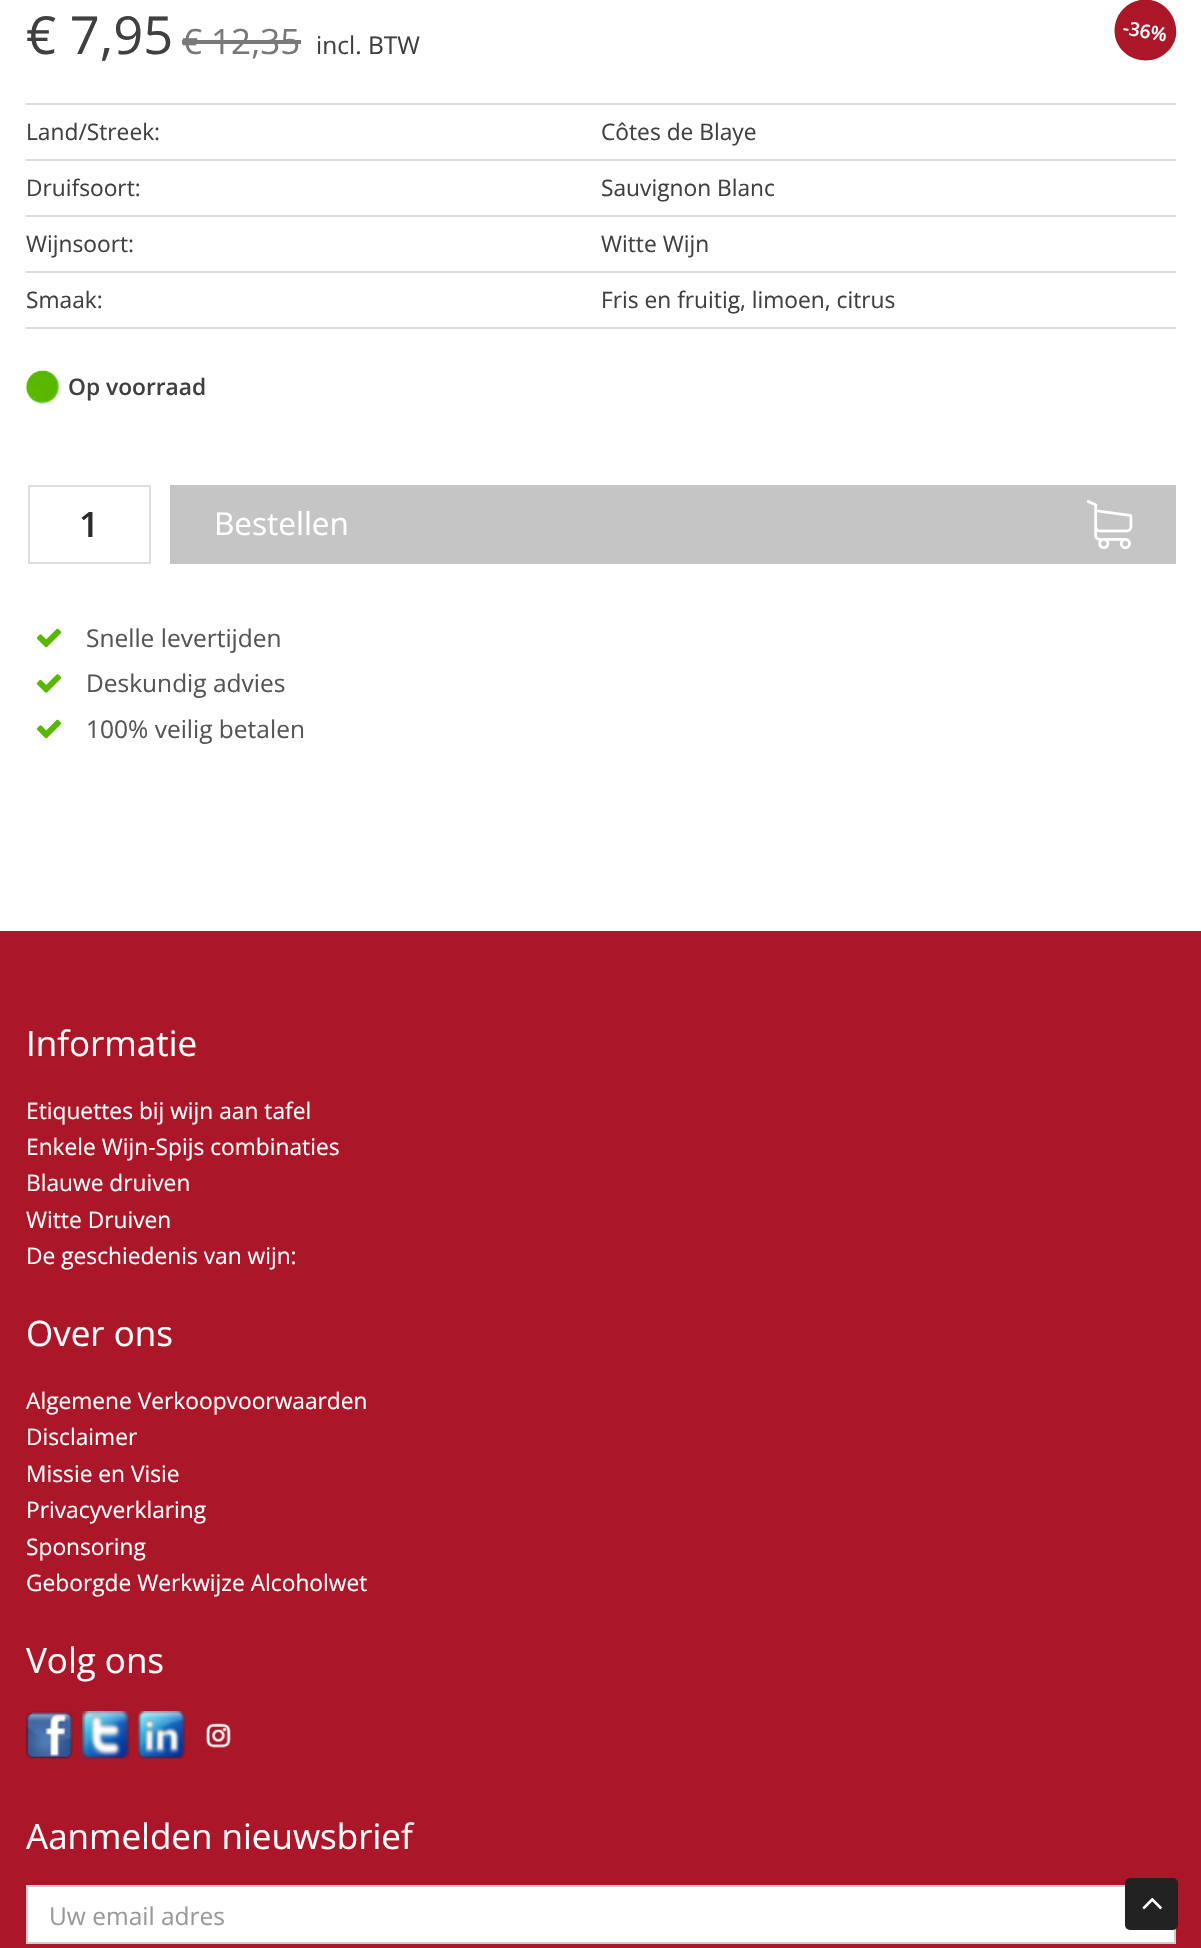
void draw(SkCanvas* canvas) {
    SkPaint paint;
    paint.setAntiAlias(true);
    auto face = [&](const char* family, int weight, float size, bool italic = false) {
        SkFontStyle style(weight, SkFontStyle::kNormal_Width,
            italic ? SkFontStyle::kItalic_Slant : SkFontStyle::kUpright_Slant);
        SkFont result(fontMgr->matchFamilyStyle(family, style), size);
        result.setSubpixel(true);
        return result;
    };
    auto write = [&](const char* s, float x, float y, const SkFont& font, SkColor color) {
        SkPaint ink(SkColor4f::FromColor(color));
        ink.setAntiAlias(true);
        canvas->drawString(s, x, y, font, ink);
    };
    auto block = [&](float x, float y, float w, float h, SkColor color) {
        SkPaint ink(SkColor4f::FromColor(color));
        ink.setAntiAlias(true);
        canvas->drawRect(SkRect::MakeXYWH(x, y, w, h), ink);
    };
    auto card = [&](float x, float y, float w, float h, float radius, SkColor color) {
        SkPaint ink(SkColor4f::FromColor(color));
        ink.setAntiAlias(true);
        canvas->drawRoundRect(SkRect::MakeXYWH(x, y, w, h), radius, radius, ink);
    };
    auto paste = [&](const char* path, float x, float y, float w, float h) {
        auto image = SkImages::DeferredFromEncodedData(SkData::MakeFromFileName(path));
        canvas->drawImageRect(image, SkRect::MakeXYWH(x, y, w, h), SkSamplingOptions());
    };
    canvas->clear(SK_ColorWHITE);
    auto kFont1 = face("Open Sans", 400, 52.5f);
    write("€ 7,95", 26, 54, kFont1, SkColorSetRGB(64, 64, 64));
    auto kFont2 = face("Open Sans", 400, 35);
    write("€ 12,35", 182, 54, kFont2, SkColorSetRGB(121, 121, 121));
    block(182, 40, 119, 4, SkColorSetRGB(121, 121, 121));
    auto kFont3 = face("Open Sans", 400, 24.5f);
    write("incl. BTW", 316, 54, kFont3, SkColorSetRGB(64, 64, 64));
    paint.setColor(SkColorSetRGB(171, 22, 41));
    canvas->drawPath(SkPathBuilder().moveTo(1151, 0).cubicTo(1167, 3, 1178, 19, 1176, 36).cubicTo(1173, 52, 1157, 63, 1140, 60).cubicTo(1123, 57, 1112, 42, 1115, 25).cubicTo(1118, 8, 1134, -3, 1151, 0).close().detach(), paint);
    auto kFont4 = face("Open Sans", 600, 19);
    canvas->save();
    canvas->rotate(10, 1122, 34);
    write("-36%", 1122, 34, kFont4, SK_ColorWHITE);
    canvas->restore();
    block(26, 103, 1150, 2, SkColorSetRGB(221, 221, 221));
    block(26, 159, 1150, 2, SkColorSetRGB(221, 221, 221));
    auto kFont5 = face("Open Sans", 400, 22.75f);
    write("Land/Streek:", 26, 140, kFont5, SkColorSetRGB(64, 64, 64));
    write("Côtes de Blaye", 601, 140, kFont5, SkColorSetRGB(64, 64, 64));
    block(26, 215, 1150, 2, SkColorSetRGB(221, 221, 221));
    write("Druifsoort:", 26, 196, kFont5, SkColorSetRGB(64, 64, 64));
    write("Sauvignon Blanc", 601, 196, kFont5, SkColorSetRGB(64, 64, 64));
    block(26, 271, 1150, 2, SkColorSetRGB(221, 221, 221));
    write("Wijnsoort:", 26, 252, kFont5, SkColorSetRGB(64, 64, 64));
    write("Witte Wijn", 601, 252, kFont5, SkColorSetRGB(64, 64, 64));
    block(26, 327, 1150, 2, SkColorSetRGB(221, 221, 221));
    write("Smaak:", 26, 308, kFont5, SkColorSetRGB(64, 64, 64));
    write("Fris en fruitig, limoen, citrus", 601, 308, kFont5, SkColorSetRGB(64, 64, 64));
    paste("pic1.png", 26, 370, 34, 34);
    auto kFont6 = face("Open Sans", 600, 22.75f);
    write("Op voorraad", 68, 395, kFont6, SkColorSetRGB(64, 64, 64));
    paint.setStyle(SkPaint::kStroke_Style);
    paint.setStrokeWidth(2);
    paint.setColor(SkColorSetRGB(222, 222, 222));
    canvas->drawRect(SkRect::MakeXYWH(29, 486, 121, 77), paint);
    auto kFont7 = face("Open Sans", 600, 35);
    write("1", 79, 537, kFont7, SkColorSetRGB(43, 43, 43));
    block(170, 485, 1006, 79, SkColorSetRGB(197, 197, 197));
    auto kFont8 = face("Open Sans", 400, 31.5f);
    write("Bestellen", 214, 535, kFont8, SK_ColorWHITE);
    paste("pic2.png", 1086, 500, 47, 49);
    paste("pic3.png", 36, 628, 26, 20);
    write("Snelle levertijden", 86, 647, kFont3, SkColorSetRGB(85, 85, 85));
    paste("pic4.png", 36, 674, 26, 19);
    write("Deskundig advies", 86, 692, kFont3, SkColorSetRGB(85, 85, 85));
    paste("pic3.png", 36, 719, 26, 20);
    write("100% veilig betalen", 86, 738, kFont3, SkColorSetRGB(85, 85, 85));
    block(0, 931, 1201, 1017, SkColorSetRGB(171, 22, 41));
    write("Informatie", 26, 1056, kFont2, SK_ColorWHITE);
    write("Etiquettes bij wijn aan tafel", 26, 1119, kFont5, SK_ColorWHITE);
    write("Enkele Wijn-Spijs combinaties", 26, 1155, kFont5, SK_ColorWHITE);
    write("Blauwe druiven", 26, 1191, kFont5, SK_ColorWHITE);
    write("Witte Druiven", 26, 1228, kFont5, SK_ColorWHITE);
    write("De geschiedenis van wijn:", 26, 1264, kFont5, SK_ColorWHITE);
    write("Over ons", 26, 1346, kFont2, SK_ColorWHITE);
    write("Algemene Verkoopvoorwaarden", 26, 1409, kFont5, SK_ColorWHITE);
    write("Disclaimer", 26, 1445, kFont5, SK_ColorWHITE);
    write("Missie en Visie", 26, 1482, kFont5, SK_ColorWHITE);
    write("Privacyverklaring", 26, 1518, kFont5, SK_ColorWHITE);
    write("Sponsoring", 26, 1555, kFont5, SK_ColorWHITE);
    write("Geborgde Werkwijze Alcoholwet", 26, 1591, kFont5, SK_ColorWHITE);
    write("Volg ons", 26, 1673, kFont2, SK_ColorWHITE);
    paste("pic5.png", 26, 1711, 48, 48);
    paste("pic6.png", 82, 1711, 48, 48);
    paste("pic7.png", 138, 1711, 48, 48);
    paste("pic8.png", 206, 1723, 25, 25);
    write("Aanmelden nieuwsbrief", 26, 1849, kFont2, SK_ColorWHITE);
    paint.setStyle(SkPaint::kFill_Style);
    paint.setColor(SK_ColorWHITE);
    canvas->drawRect(SkRect::MakeXYWH(27, 1886, 1148, 57), paint);
    paint.setStyle(SkPaint::kStroke_Style);
    paint.setColor(SkColorSetRGB(204, 204, 204));
    canvas->drawRect(SkRect::MakeXYWH(27, 1886, 1148, 57), paint);
    write("Uw email adres", 49, 1925, kFont3, SkColorSetRGB(153, 153, 153));
    card(1125, 1878, 53, 52, 5, SkColorSetRGB(34, 34, 34));
    paste("pic9.png", 1142, 1897, 20, 13);
}
